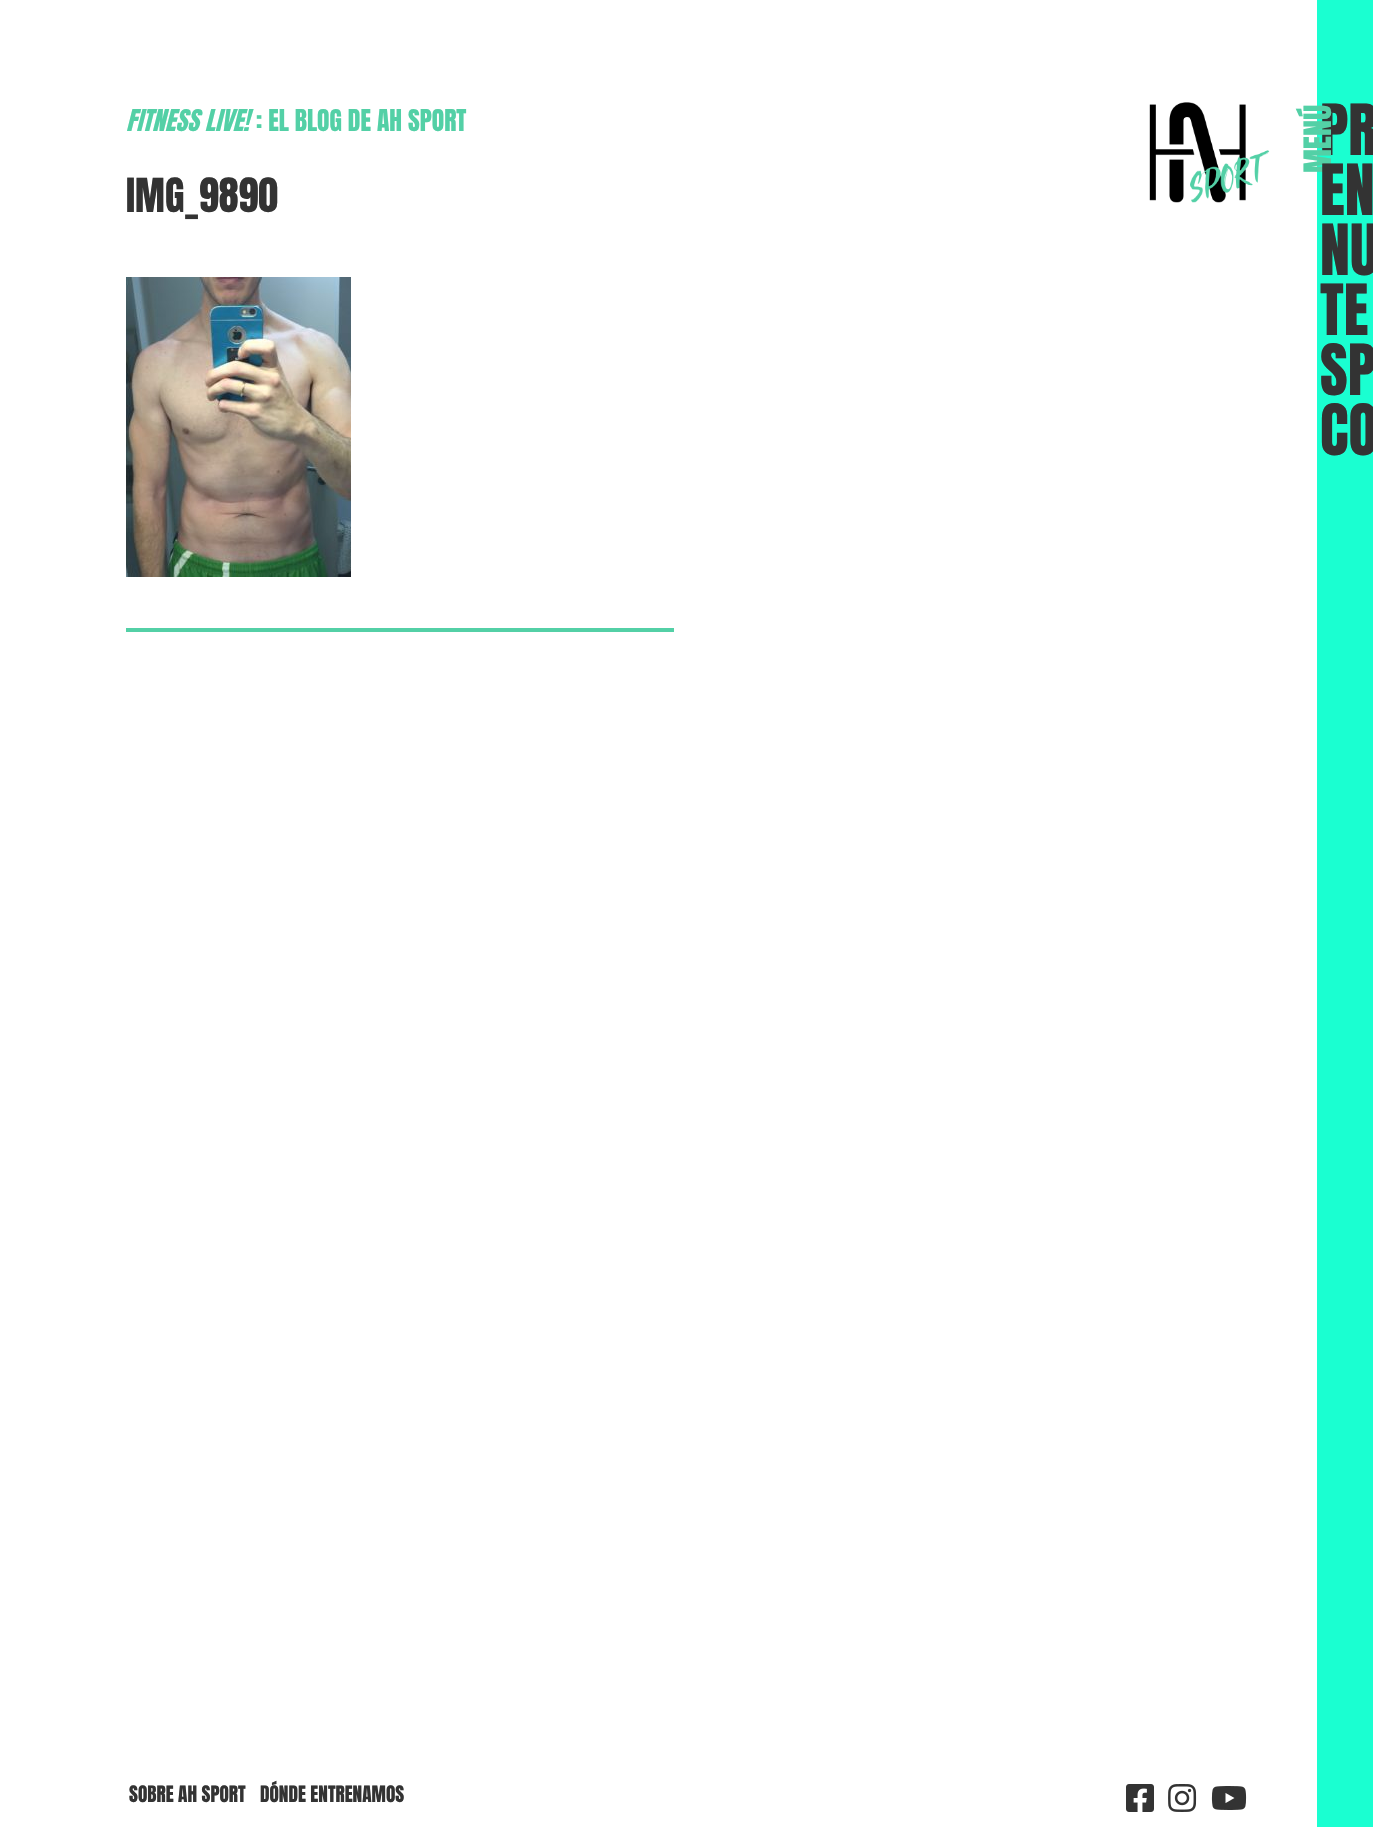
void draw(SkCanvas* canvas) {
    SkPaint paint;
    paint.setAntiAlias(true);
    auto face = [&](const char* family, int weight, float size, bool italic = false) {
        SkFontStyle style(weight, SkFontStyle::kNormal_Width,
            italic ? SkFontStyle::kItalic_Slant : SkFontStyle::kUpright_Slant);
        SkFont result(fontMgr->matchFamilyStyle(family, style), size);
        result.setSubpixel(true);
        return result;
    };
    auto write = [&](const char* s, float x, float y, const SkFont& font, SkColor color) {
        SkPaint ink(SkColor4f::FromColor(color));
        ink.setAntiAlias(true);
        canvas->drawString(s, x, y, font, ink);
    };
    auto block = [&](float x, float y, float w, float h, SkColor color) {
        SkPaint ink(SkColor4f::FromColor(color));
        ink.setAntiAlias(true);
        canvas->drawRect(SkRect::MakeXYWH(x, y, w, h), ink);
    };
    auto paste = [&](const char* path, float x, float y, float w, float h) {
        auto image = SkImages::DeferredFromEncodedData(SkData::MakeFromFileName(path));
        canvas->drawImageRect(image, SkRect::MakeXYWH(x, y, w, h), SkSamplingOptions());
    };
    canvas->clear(SK_ColorWHITE);
    auto kFont1 = face("Anton", 400, 25.5f, true);
    write("FITNESS LIVE!", 126, 131, kFont1, SkColorSetRGB(83, 208, 166));
    auto kFont2 = face("Anton", 400, 25.5f);
    write(": EL BLOG DE AH SPORT", 256, 131, kFont2, SkColorSetRGB(83, 208, 166));
    block(126, 628, 548, 4, SkColorSetRGB(83, 208, 166));
    auto kFont3 = face("Anton", 400, 40);
    write("IMG_9890", 126, 212, kFont3, SkColorSetRGB(51, 51, 51));
    paste("pic1.png", 126, 277, 225, 300);
    paste("pic2.png", 1149, 102, 121, 101);
    block(1317, 0, 56, 1827, SkColorSetRGB(26, 255, 209));
    auto kFont4 = face("Anton", 400, 60);
    write("PR", 1320, 155, kFont4, SkColorSetRGB(51, 51, 51));
    auto kFont5 = face("Anton", 400, 32);
    canvas->save();
    canvas->rotate(-90, 1331, 173);
    write("MENÚ", 1331, 173, kFont5, SkColorSetRGB(83, 208, 166));
    canvas->restore();
    write("EN", 1320, 215, kFont4, SkColorSetRGB(51, 51, 51));
    write("NU", 1320, 275, kFont4, SkColorSetRGB(51, 51, 51));
    write("TE", 1320, 335, kFont4, SkColorSetRGB(51, 51, 51));
    write("SP", 1320, 395, kFont4, SkColorSetRGB(51, 51, 51));
    write("CO", 1320, 455, kFont4, SkColorSetRGB(51, 51, 51));
    auto kFont6 = face("Anton", 400, 19.25f);
    write("SOBRE AH SPORT", 129, 1802, kFont6, SkColorSetRGB(51, 51, 51));
    write("DÓNDE ENTRENAMOS", 260, 1802, kFont6, SkColorSetRGB(51, 51, 51));
    paste("pic3.png", 1126, 1784, 28, 28);
    paste("pic4.png", 1168, 1784, 29, 28);
    paste("pic5.png", 1211, 1786, 36, 24);
}
